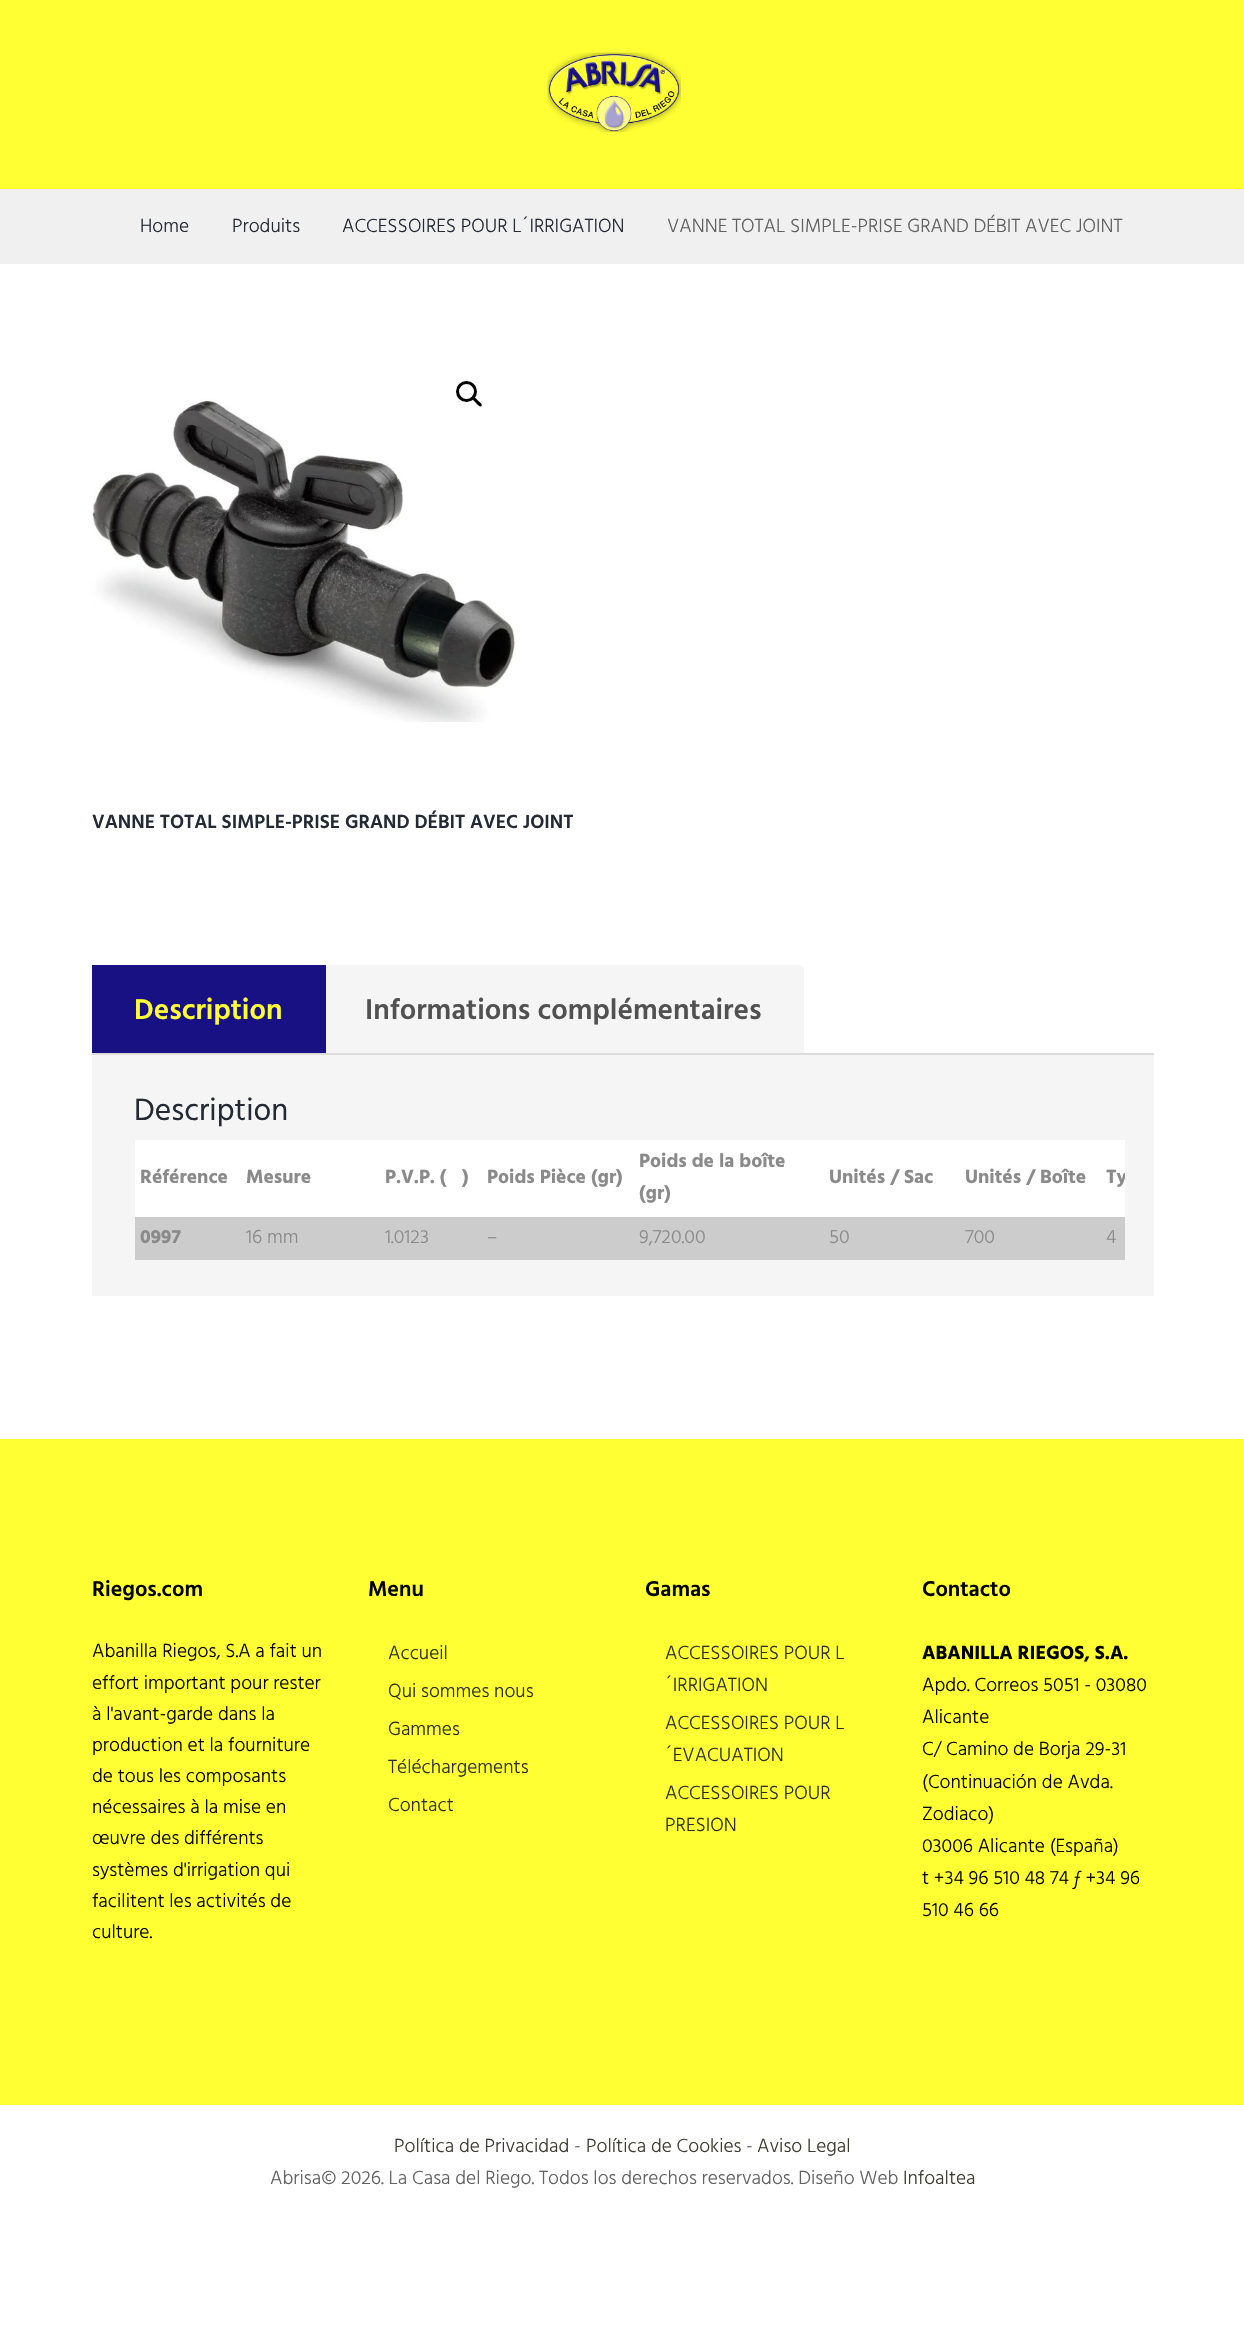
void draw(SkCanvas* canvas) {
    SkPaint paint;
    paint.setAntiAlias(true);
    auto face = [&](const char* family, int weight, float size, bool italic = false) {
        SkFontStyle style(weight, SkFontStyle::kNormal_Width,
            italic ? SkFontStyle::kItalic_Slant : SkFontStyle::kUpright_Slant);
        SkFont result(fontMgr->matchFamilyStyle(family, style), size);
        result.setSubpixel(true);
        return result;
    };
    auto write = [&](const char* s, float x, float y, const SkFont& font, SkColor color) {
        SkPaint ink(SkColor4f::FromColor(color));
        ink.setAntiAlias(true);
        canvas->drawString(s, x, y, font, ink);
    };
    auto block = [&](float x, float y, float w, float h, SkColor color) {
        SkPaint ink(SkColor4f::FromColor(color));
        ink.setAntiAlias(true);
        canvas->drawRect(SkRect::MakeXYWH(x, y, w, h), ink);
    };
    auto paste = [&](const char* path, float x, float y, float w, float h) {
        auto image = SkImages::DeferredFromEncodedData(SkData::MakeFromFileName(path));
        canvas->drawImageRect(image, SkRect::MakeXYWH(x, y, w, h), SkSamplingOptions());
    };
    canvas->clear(SK_ColorWHITE);
    block(0, 0, 1244, 189, SkColorSetRGB(255, 255, 51));
    paste("pic1.png", 547, 52, 134, 80);
    block(0, 189, 1244, 75, SkColorSetRGB(240, 240, 240));
    auto kFont1 = face("Hind", 300, 19.5f);
    write("Home", 140, 232, kFont1, SkColorSetRGB(35, 42, 52));
    write("Produits", 232, 232, kFont1, SkColorSetRGB(35, 42, 52));
    write("ACCESSOIRES POUR L´IRRIGATION", 342, 232, kFont1, SkColorSetRGB(35, 42, 52));
    write("VANNE TOTAL SIMPLE-PRISE GRAND DÉBIT AVEC JOINT", 667, 232, kFont1, SkColorSetRGB(96, 96, 96));
    paste("pic2.png", 92, 399, 424, 323);
    paint.setStyle(SkPaint::kStroke_Style);
    paint.setStrokeWidth(3);
    paint.setColor(SK_ColorBLACK);
    canvas->drawCircle(466.5f, 391.5f, 9, paint);
    paint.setStyle(SkPaint::kFill_Style);
    canvas->drawPath(SkPathBuilder().moveTo(473, 397.5f).cubicTo(474.5f, 396, 477.5f, 400, 478.5f, 401).cubicTo(479.5f, 402, 483, 404.5f, 481.5f, 406).cubicTo(480, 408, 477, 404, 476, 403).cubicTo(475.5f, 402, 471.5f, 399.5f, 473, 397.5f).close().detach(), paint);
    auto kFont2 = face("Hind", 600, 19.5f);
    write("VANNE TOTAL SIMPLE-PRISE GRAND DÉBIT AVEC JOINT", 92, 828, kFont2, SkColorSetRGB(35, 42, 52));
    paint.setColor(SkColorSetRGB(245, 245, 245));
    canvas->drawPath(SkPathBuilder().moveTo(329, 965).lineTo(798, 965).cubicTo(801.5f, 965, 804, 967.5f, 804, 971).lineTo(804, 1053).lineTo(323, 1053).lineTo(323, 971).cubicTo(323, 967.5f, 325.5f, 965, 329, 965).close().detach(), paint);
    block(92, 965, 234, 88, SkColorSetRGB(24, 17, 131));
    auto kFont3 = face("Hind", 600, 29.25f);
    write("Description", 134, 1019, kFont3, SkColorSetRGB(255, 255, 51));
    write("Informations complémentaires", 365, 1019, kFont3, SkColorSetRGB(81, 81, 81));
    block(92, 1055, 1062, 241, SkColorSetRGB(245, 245, 245));
    block(92, 1053, 1062, 2, SkColorSetRGB(220, 220, 220));
    auto kFont4 = face("Hind", 400, 31.5f);
    write("Description", 134, 1120, kFont4, SkColorSetRGB(35, 42, 52));
    block(135, 1140, 990, 77, SK_ColorWHITE);
    auto kFont5 = face("Hind", 700, 19.5f);
    write("Référence", 140, 1183, kFont5, SkColorSetRGB(138, 138, 138));
    write("Mesure", 246, 1183, kFont5, SkColorSetRGB(138, 138, 138));
    write("P.V.P. (", 385, 1183, kFont5, SkColorSetRGB(138, 138, 138));
    write(")", 462, 1183, kFont5, SkColorSetRGB(138, 138, 138));
    write("Poids Pièce (gr)", 487, 1183, kFont5, SkColorSetRGB(138, 138, 138));
    write("Poids de la boîte", 639, 1167, kFont5, SkColorSetRGB(138, 138, 138));
    write("(gr)", 639, 1199, kFont5, SkColorSetRGB(138, 138, 138));
    write("Unités / Sac", 829, 1183, kFont5, SkColorSetRGB(138, 138, 138));
    write("Unités / Boîte", 965, 1183, kFont5, SkColorSetRGB(138, 138, 138));
    canvas->save();
    canvas->clipRect(SkRect::MakeXYWH(135, 1140, 990, 120));
    write("Ty", 1106, 1183, kFont5, SkColorSetRGB(138, 138, 138));
    canvas->restore();
    block(135, 1217, 990, 43, SkColorSetRGB(204, 204, 204));
    write("0997", 140, 1243, kFont5, SkColorSetRGB(138, 138, 138));
    write("16 mm", 246, 1243, kFont1, SkColorSetRGB(138, 138, 138));
    write("1.0123", 385, 1243, kFont1, SkColorSetRGB(138, 138, 138));
    write("–", 487, 1243, kFont1, SkColorSetRGB(138, 138, 138));
    write("9,720.00", 639, 1243, kFont1, SkColorSetRGB(138, 138, 138));
    write("50", 829, 1243, kFont1, SkColorSetRGB(138, 138, 138));
    write("700", 965, 1243, kFont1, SkColorSetRGB(138, 138, 138));
    write("4", 1106, 1243, kFont1, SkColorSetRGB(138, 138, 138));
    block(0, 1439, 1244, 666, SkColorSetRGB(255, 255, 51));
    auto kFont6 = face("Hind", 600, 22);
    write("Riegos.com", 92, 1596, kFont6, SK_ColorBLACK);
    write("Abanilla Riegos, S.A a fait un", 92, 1657, kFont1, SK_ColorBLACK);
    write("effort important pour rester", 92, 1689, kFont1, SK_ColorBLACK);
    write("à l'avant-garde dans la", 92, 1720, kFont1, SK_ColorBLACK);
    write("production et la fourniture", 92, 1751, kFont1, SK_ColorBLACK);
    write("de tous les composants", 92, 1782, kFont1, SK_ColorBLACK);
    write("nécessaires à la mise en", 92, 1813, kFont1, SK_ColorBLACK);
    write("œuvre des différents", 92, 1844, kFont1, SK_ColorBLACK);
    write("systèmes d'irrigation qui", 92, 1876, kFont1, SK_ColorBLACK);
    write("facilitent les activités de", 92, 1907, kFont1, SK_ColorBLACK);
    write("culture.", 92, 1938, kFont1, SK_ColorBLACK);
    write("Menu", 368, 1596, kFont6, SK_ColorBLACK);
    write("Accueil", 388, 1659, kFont1, SkColorSetRGB(41, 46, 40));
    write("Qui sommes nous", 388, 1697, kFont1, SkColorSetRGB(41, 46, 40));
    write("Gammes", 388, 1735, kFont1, SkColorSetRGB(41, 46, 40));
    write("Téléchargements", 388, 1773, kFont1, SkColorSetRGB(41, 46, 40));
    write("Contact", 388, 1811, kFont1, SkColorSetRGB(41, 46, 40));
    write("Gamas", 645, 1596, kFont6, SK_ColorBLACK);
    write("ACCESSOIRES POUR L", 665, 1659, kFont1, SkColorSetRGB(41, 46, 40));
    write("´IRRIGATION", 665, 1691, kFont1, SkColorSetRGB(41, 46, 40));
    write("ACCESSOIRES POUR L", 665, 1729, kFont1, SkColorSetRGB(41, 46, 40));
    write("´EVACUATION", 665, 1761, kFont1, SkColorSetRGB(41, 46, 40));
    write("ACCESSOIRES POUR", 665, 1799, kFont1, SkColorSetRGB(41, 46, 40));
    write("PRESION", 665, 1831, kFont1, SkColorSetRGB(41, 46, 40));
    write("Contacto", 922, 1596, kFont6, SK_ColorBLACK);
    write("ABANILLA RIEGOS, S.A.", 922, 1659, kFont5, SK_ColorBLACK);
    write("Apdo. Correos 5051 - 03080", 922, 1691, kFont1, SK_ColorBLACK);
    write("Alicante", 922, 1723, kFont1, SK_ColorBLACK);
    write("C/ Camino de Borja 29-31", 922, 1755, kFont1, SK_ColorBLACK);
    write("(Continuación de Avda.", 922, 1788, kFont1, SK_ColorBLACK);
    write("Zodiaco)", 922, 1820, kFont1, SK_ColorBLACK);
    write("03006 Alicante (España)", 922, 1852, kFont1, SK_ColorBLACK);
    write("t +34 96 510 48 74 ƒ +34 96", 922, 1884, kFont1, SK_ColorBLACK);
    write("510 46 66", 922, 1916, kFont1, SK_ColorBLACK);
    write("Política de Privacidad", 394, 2152, kFont1, SkColorSetRGB(61, 59, 48));
    write("-", 574, 2152, kFont1, SkColorSetRGB(96, 96, 96));
    write("Política de Cookies", 586, 2152, kFont1, SkColorSetRGB(61, 59, 48));
    write("-", 746, 2152, kFont1, SkColorSetRGB(96, 96, 96));
    write("Aviso Legal", 757, 2152, kFont1, SkColorSetRGB(61, 59, 48));
    write("Abrisa© 2026. La Casa del Riego. Todos los derechos reservados. Diseño Web", 270, 2184, kFont1, SkColorSetRGB(96, 96, 96));
    write("Infoaltea", 903, 2184, kFont1, SkColorSetRGB(61, 59, 48));
}
